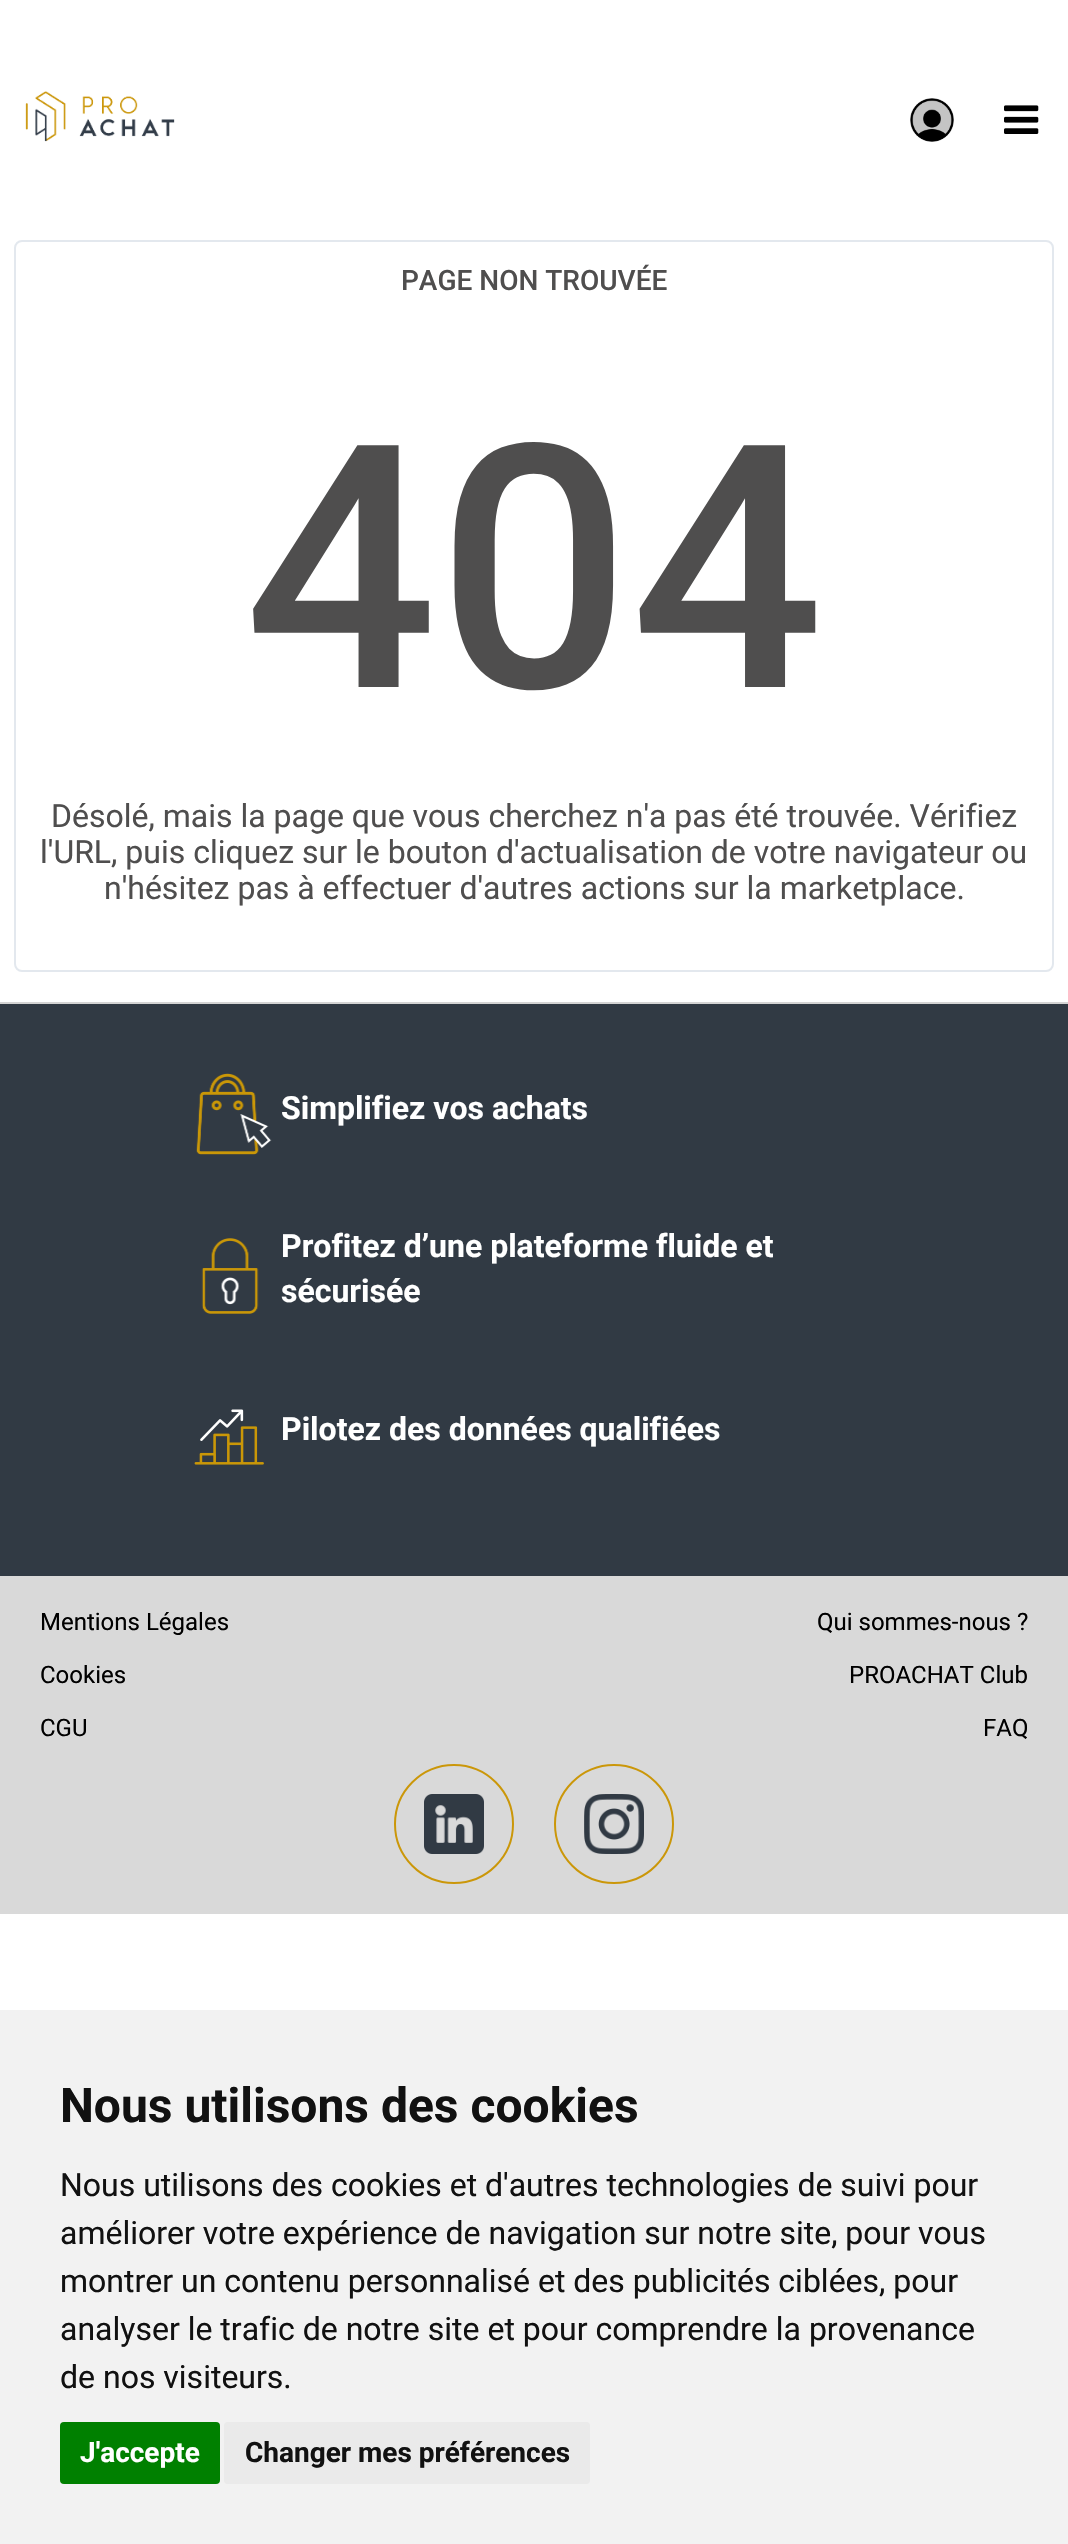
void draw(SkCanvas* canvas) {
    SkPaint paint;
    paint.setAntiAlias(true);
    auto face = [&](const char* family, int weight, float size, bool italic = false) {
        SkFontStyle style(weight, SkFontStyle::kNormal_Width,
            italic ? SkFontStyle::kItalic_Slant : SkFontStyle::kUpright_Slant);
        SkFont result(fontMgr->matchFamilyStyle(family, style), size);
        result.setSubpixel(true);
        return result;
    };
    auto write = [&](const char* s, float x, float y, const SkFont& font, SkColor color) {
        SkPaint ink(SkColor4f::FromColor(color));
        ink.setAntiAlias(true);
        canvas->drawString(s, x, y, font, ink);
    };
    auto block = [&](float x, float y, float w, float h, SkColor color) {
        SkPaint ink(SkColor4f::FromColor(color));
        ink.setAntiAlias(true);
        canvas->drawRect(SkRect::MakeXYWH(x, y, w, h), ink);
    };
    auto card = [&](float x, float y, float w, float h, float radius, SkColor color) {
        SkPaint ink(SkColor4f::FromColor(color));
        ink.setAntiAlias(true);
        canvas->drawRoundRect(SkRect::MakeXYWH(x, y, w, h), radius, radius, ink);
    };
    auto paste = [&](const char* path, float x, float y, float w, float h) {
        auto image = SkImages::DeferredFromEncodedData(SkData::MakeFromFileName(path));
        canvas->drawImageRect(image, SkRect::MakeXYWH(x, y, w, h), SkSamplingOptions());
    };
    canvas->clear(SK_ColorWHITE);
    paste("pic1.png", 25, 91, 150, 51);
    paint.setColor(SkColorSetRGB(196, 196, 196));
    canvas->drawCircle(932, 120, 22, paint);
    paste("pic2.png", 910, 98, 44, 44);
    paste("pic3.png", 1004, 105, 35, 29);
    paint.setStyle(SkPaint::kStroke_Style);
    paint.setStrokeWidth(2);
    paint.setColor(SkColorSetRGB(227, 232, 238));
    canvas->drawRoundRect(SkRect::MakeXYWH(15, 241, 1038, 730), 7, 7, paint);
    auto kFont1 = face("Roboto", 500, 28);
    write("PAGE NON TROUVÉE", 401, 290, kFont1, SkColorSetRGB(79, 78, 78));
    auto kFont2 = face("Roboto", 500, 340);
    write("404", 244, 687, kFont2, SkColorSetRGB(79, 78, 78));
    auto kFont3 = face("Roboto", 400, 32);
    write("Désolé, mais la page que vous cherchez n'a pas été trouvée. Vérifiez", 51, 827, kFont3, SkColorSetRGB(79, 78, 78));
    write("l'URL, puis cliquez sur le bouton d'actualisation de votre navigateur ou", 40, 863, kFont3, SkColorSetRGB(79, 78, 78));
    write("n'hésitez pas à effectuer d'autres actions sur la marketplace.", 104, 899, kFont3, SkColorSetRGB(79, 78, 78));
    block(0, 1002, 1068, 2, SkColorSetRGB(212, 212, 212));
    block(0, 1004, 1068, 572, SkColorSetRGB(49, 58, 68));
    paste("pic4.png", 196, 1073, 76, 82);
    auto kFont4 = face("Roboto", 700, 32);
    write("Simplifiez vos achats", 281, 1119, kFont4, SK_ColorWHITE);
    paste("pic5.png", 201, 1238, 58, 76);
    write("Profitez d’une plateforme fluide et", 281, 1257, kFont4, SK_ColorWHITE);
    write("sécurisée", 281, 1302, kFont4, SK_ColorWHITE);
    paste("pic6.png", 194, 1409, 70, 56);
    write("Pilotez des données qualifiées", 281, 1440, kFont4, SK_ColorWHITE);
    block(0, 1576, 1068, 338, SkColorSetRGB(217, 217, 217));
    auto kFont5 = face("Roboto", 400, 24);
    write("Mentions Légales", 40, 1630, kFont5, SK_ColorBLACK);
    write("Cookies", 40, 1683, kFont5, SK_ColorBLACK);
    write("CGU", 40, 1736, kFont5, SK_ColorBLACK);
    write("Qui sommes-nous ?", 817, 1630, kFont5, SK_ColorBLACK);
    write("PROACHAT Club", 849, 1683, kFont5, SK_ColorBLACK);
    write("FAQ", 983, 1736, kFont5, SK_ColorBLACK);
    paint.setColor(SkColorSetRGB(203, 151, 9));
    canvas->drawCircle(454, 1824, 59, paint);
    paste("pic7.png", 424, 1794, 60, 60);
    canvas->drawCircle(614, 1824, 59, paint);
    paste("pic8.png", 584, 1794, 60, 60);
    block(0, 2010, 1068, 534, SkColorSetRGB(242, 242, 242));
    auto kFont6 = face("Roboto", 700, 48);
    write("Nous utilisons des cookies", 60, 2122, kFont6, SkColorSetRGB(17, 17, 17));
    write("Nous utilisons des cookies et d'autres technologies de suivi pour", 60, 2196, kFont3, SkColorSetRGB(17, 17, 17));
    write("améliorer votre expérience de navigation sur notre site, pour vous", 60, 2244, kFont3, SkColorSetRGB(17, 17, 17));
    write("montrer un contenu personnalisé et des publicités ciblées, pour", 60, 2292, kFont3, SkColorSetRGB(17, 17, 17));
    write("analyser le trafic de notre site et pour comprendre la provenance", 60, 2340, kFont3, SkColorSetRGB(17, 17, 17));
    write("de nos visiteurs.", 60, 2388, kFont3, SkColorSetRGB(17, 17, 17));
    card(60, 2422, 160, 62, 4, SkColorSetRGB(0, 128, 0));
    auto kFont7 = face("Roboto", 700, 28);
    write("J'accepte", 80, 2462, kFont7, SK_ColorWHITE);
    card(224, 2422, 366, 62, 4, SkColorSetRGB(234, 234, 234));
    write("Changer mes préférences", 245, 2462, kFont7, SkColorSetRGB(17, 17, 17));
}
